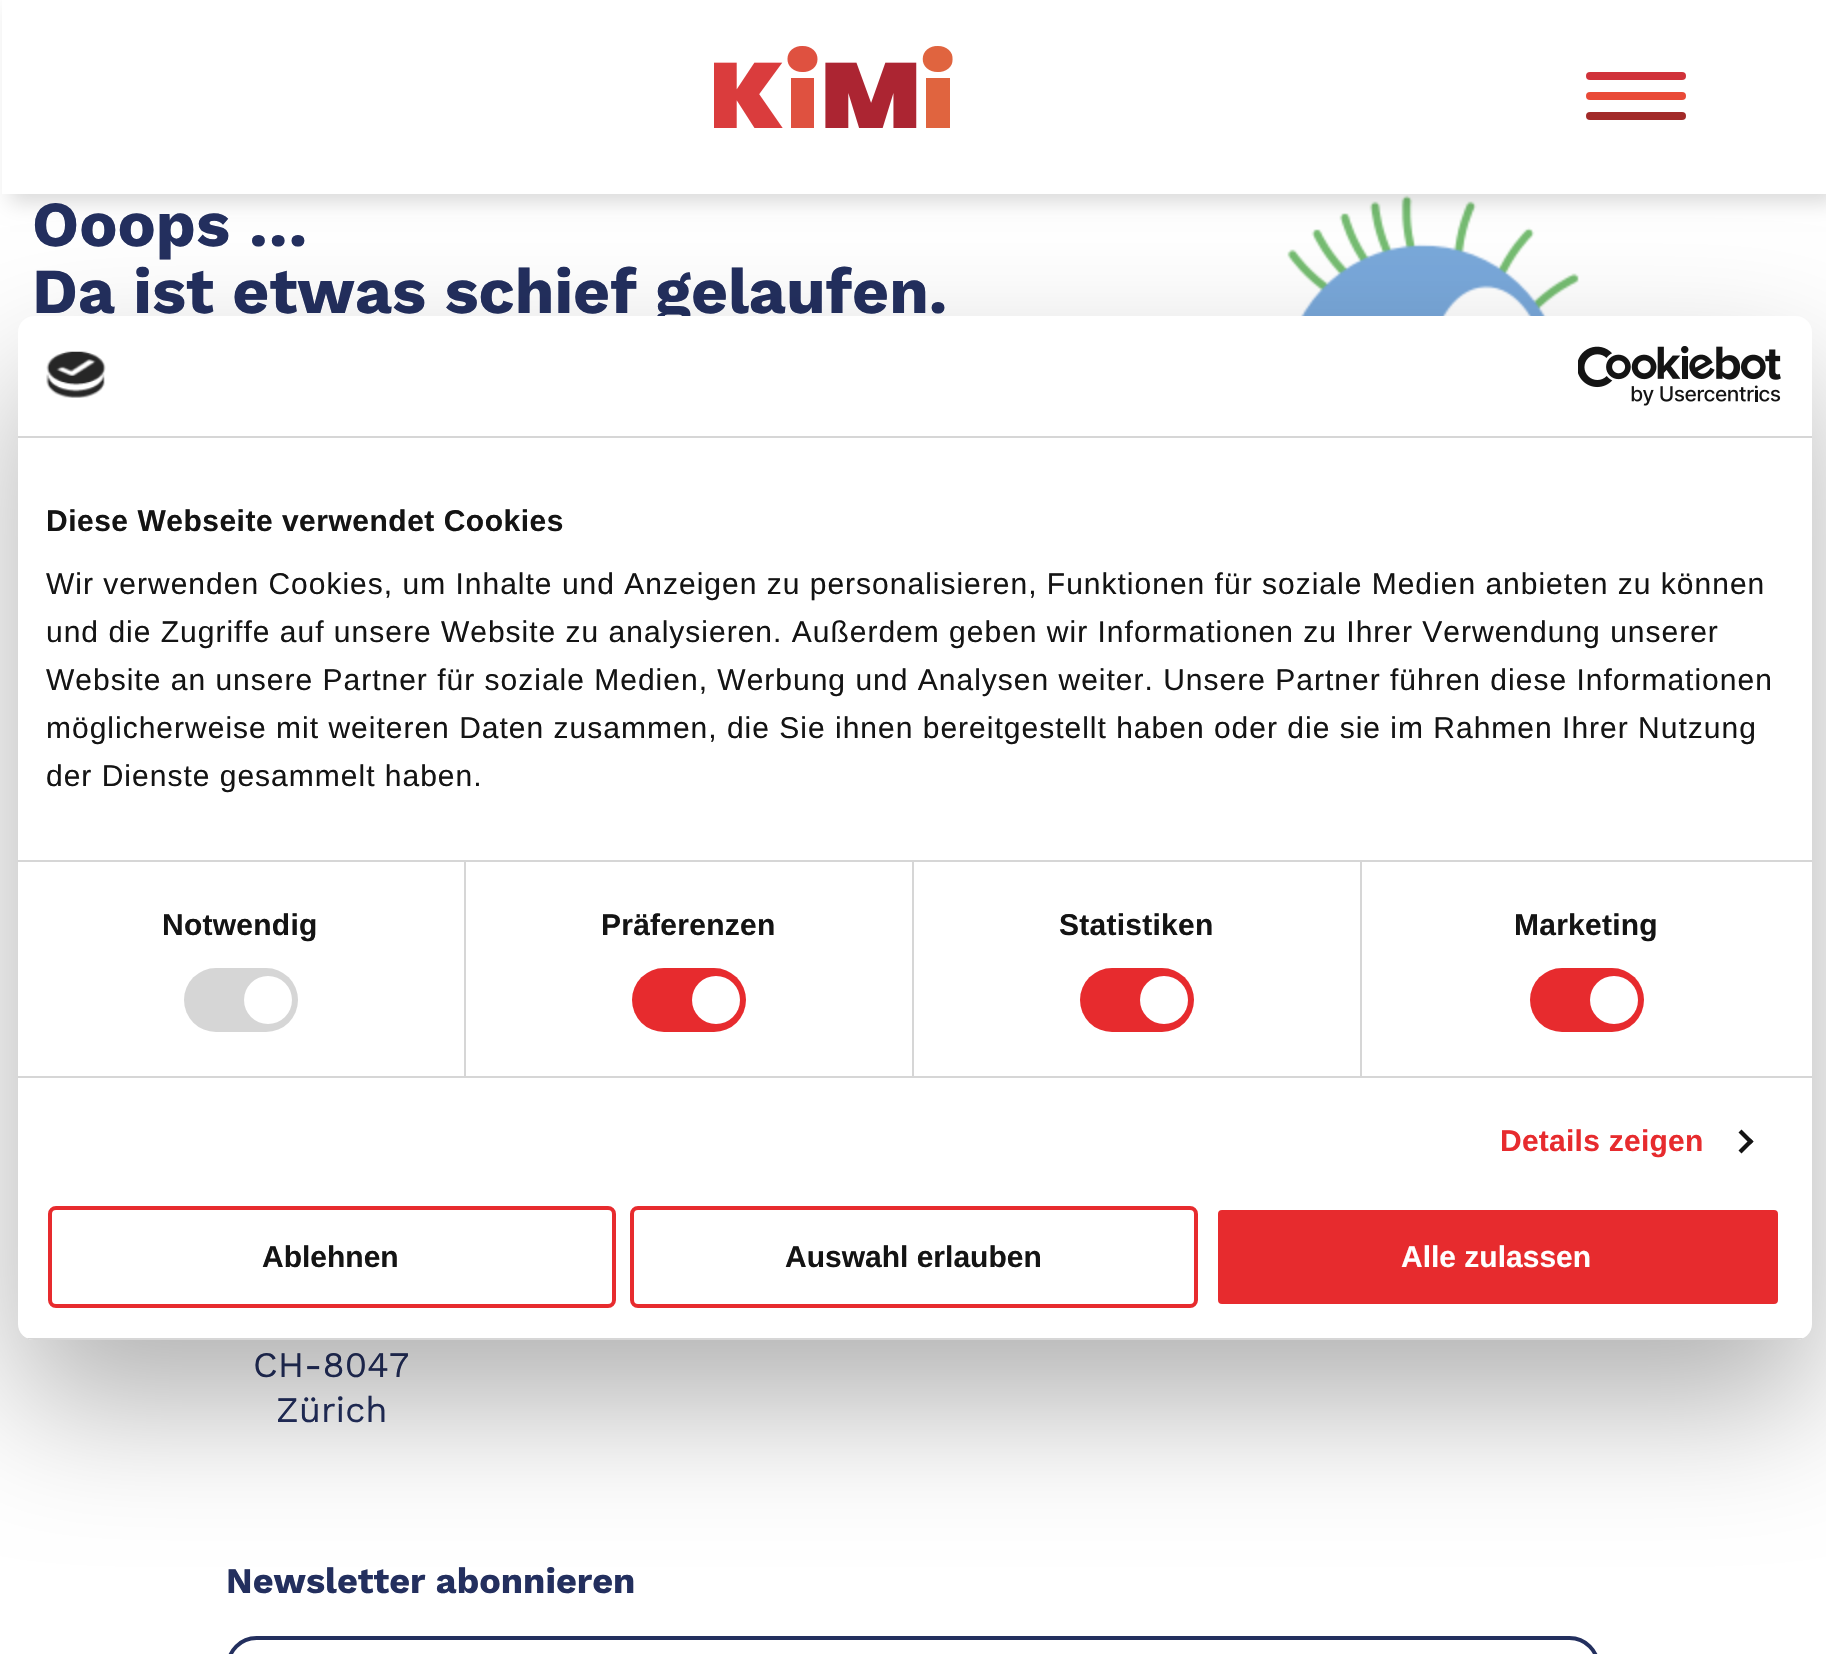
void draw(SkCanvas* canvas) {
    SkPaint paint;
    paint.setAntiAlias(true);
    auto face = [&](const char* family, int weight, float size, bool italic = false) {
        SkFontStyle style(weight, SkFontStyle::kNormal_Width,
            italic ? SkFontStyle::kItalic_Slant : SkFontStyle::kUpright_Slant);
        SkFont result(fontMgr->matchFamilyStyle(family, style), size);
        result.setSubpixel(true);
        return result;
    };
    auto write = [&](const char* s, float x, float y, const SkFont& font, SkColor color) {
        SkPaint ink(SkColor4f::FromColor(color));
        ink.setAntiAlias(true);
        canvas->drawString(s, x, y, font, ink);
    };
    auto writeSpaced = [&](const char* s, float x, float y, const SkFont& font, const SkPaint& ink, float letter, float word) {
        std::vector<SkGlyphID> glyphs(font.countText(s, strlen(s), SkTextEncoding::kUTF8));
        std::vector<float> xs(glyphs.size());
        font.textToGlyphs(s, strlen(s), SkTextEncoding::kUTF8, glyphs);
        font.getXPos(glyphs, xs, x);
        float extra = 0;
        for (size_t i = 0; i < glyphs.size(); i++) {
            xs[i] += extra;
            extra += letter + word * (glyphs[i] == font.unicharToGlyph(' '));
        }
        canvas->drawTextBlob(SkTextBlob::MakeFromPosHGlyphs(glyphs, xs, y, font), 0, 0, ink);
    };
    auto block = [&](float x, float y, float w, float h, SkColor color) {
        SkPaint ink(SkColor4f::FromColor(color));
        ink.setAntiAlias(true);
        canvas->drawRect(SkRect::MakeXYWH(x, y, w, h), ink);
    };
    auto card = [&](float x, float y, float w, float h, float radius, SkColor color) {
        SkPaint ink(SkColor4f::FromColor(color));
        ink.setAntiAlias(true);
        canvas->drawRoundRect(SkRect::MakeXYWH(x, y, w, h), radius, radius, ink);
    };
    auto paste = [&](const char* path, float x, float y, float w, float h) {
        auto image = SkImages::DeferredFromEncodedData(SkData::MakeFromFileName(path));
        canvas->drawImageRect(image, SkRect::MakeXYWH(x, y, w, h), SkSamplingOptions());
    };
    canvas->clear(SK_ColorWHITE);
    paste("pic2.png", 1287, 195, 292, 121);
    canvas->save();
    canvas->clipPath(SkPathBuilder(SkPathFillType::kEvenOdd).moveTo(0, 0).lineTo(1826, 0).lineTo(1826, 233).lineTo(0, 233).close().moveTo(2, 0).lineTo(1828, 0).lineTo(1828, 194).lineTo(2, 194).close().detach(), true);
    paint.setColor(SkColorSetARGB(38, 0, 0, 0));
    paint.setMaskFilter(SkMaskFilter::MakeBlur(kNormal_SkBlurStyle, 10));
    canvas->drawRect(SkRect::MakeXYWH(10, 8, 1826, 194), paint);
    paint.setMaskFilter(nullptr);
    canvas->restore();
    paste("pic1.png", 714, 46, 239, 82);
    card(1586, 112, 100, 8, 4, SkColorSetRGB(162, 42, 41));
    card(1586, 72, 100, 8, 4, SkColorSetRGB(208, 50, 58));
    card(1586, 92, 100, 8, 4, SkColorSetRGB(233, 74, 56));
    auto kFont1 = face("Work Sans", 700, 64);
    write("Ooops …", 32, 246, kFont1, SkColorSetRGB(35, 47, 94));
    write("Da ist etwas schief gelaufen.", 32, 313, kFont1, SkColorSetRGB(35, 47, 94));
    auto kFont2 = face("Work Sans", 400, 36);
    write("CH-8047", 253, 1377, kFont2, SkColorSetRGB(35, 47, 94));
    write("Zürich", 276, 1422, kFont2, SkColorSetRGB(35, 47, 94));
    auto kFont3 = face("Work Sans", 700, 36);
    write("Newsletter abonnieren", 226, 1593, kFont3, SkColorSetRGB(35, 47, 94));
    paint.setStyle(SkPaint::kStroke_Style);
    paint.setStrokeWidth(4);
    paint.setColor(SkColorSetRGB(35, 47, 94));
    canvas->drawRoundRect(SkRect::MakeXYWH(228, 1638, 1370, 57), 37, 37, paint);
    paint.setStyle(SkPaint::kFill_Style);
    paint.setColor(SkColorSetARGB(77, 0, 0, 0));
    paint.setMaskFilter(SkMaskFilter::MakeBlur(kNormal_SkBlurStyle, 68));
    canvas->drawRoundRect(SkRect::MakeXYWH(18, 380, 1794, 1024), 16, 16, paint);
    paint.setMaskFilter(nullptr);
    card(18, 316, 1794, 1024, 16, SK_ColorWHITE);
    block(18, 436, 1794, 2, SkColorSetRGB(214, 214, 214));
    paste("pic3.png", 46, 351, 60, 47);
    paste("pic4.png", 1578, 346, 203, 60);
    block(18, 860, 1794, 2, SkColorSetRGB(214, 214, 214));
    auto kFont4 = face("Liberation Sans", 700, 30);
    paint.setColor(SkColorSetRGB(20, 20, 20));
    writeSpaced("Diese Webseite verwendet Cookies", 46, 531, kFont4, paint, 0.5f, 0);
    auto kFont5 = face("Liberation Sans", 400, 30);
    writeSpaced("Wir verwenden Cookies, um Inhalte und Anzeigen zu personalisieren, Funktionen für soziale Medien anbieten zu können", 46, 594, kFont5, paint, 1, 0);
    writeSpaced("und die Zugriffe auf unsere Website zu analysieren. Außerdem geben wir Informationen zu Ihrer Verwendung unserer", 46, 642, kFont5, paint, 1, 0);
    writeSpaced("Website an unsere Partner für soziale Medien, Werbung und Analysen weiter. Unsere Partner führen diese Informationen", 46, 690, kFont5, paint, 1, 0);
    writeSpaced("möglicherweise mit weiteren Daten zusammen, die Sie ihnen bereitgestellt haben oder die sie im Rahmen Ihrer Nutzung", 46, 738, kFont5, paint, 1, 0);
    writeSpaced("der Dienste gesammelt haben.", 46, 786, kFont5, paint, 1, 0);
    block(18, 1076, 1794, 2, SkColorSetRGB(214, 214, 214));
    block(464, 862, 2, 214, SkColorSetRGB(214, 214, 214));
    writeSpaced("Notwendig", 162, 935, kFont4, paint, 0.25f, 0);
    card(184, 968, 114, 64, 32, SkColorSetRGB(214, 214, 214));
    paint.setColor(SK_ColorWHITE);
    canvas->drawCircle(268, 1000, 24, paint);
    block(912, 862, 2, 214, SkColorSetRGB(214, 214, 214));
    paint.setColor(SkColorSetRGB(20, 20, 20));
    writeSpaced("Präferenzen", 601, 935, kFont4, paint, 0.25f, 0);
    card(632, 968, 114, 64, 32, SkColorSetRGB(231, 43, 46));
    paint.setColor(SK_ColorWHITE);
    canvas->drawCircle(716, 1000, 24, paint);
    block(1360, 862, 2, 214, SkColorSetRGB(214, 214, 214));
    paint.setColor(SkColorSetRGB(20, 20, 20));
    writeSpaced("Statistiken", 1059, 935, kFont4, paint, 0.25f, 0);
    card(1080, 968, 114, 64, 32, SkColorSetRGB(231, 43, 46));
    paint.setColor(SK_ColorWHITE);
    canvas->drawCircle(1164, 1000, 24, paint);
    paint.setColor(SkColorSetRGB(20, 20, 20));
    writeSpaced("Marketing", 1514, 935, kFont4, paint, 0.25f, 0);
    card(1530, 968, 114, 64, 32, SkColorSetRGB(231, 43, 46));
    paint.setColor(SK_ColorWHITE);
    canvas->drawCircle(1614, 1000, 24, paint);
    paint.setColor(SkColorSetRGB(231, 43, 46));
    writeSpaced("Details zeigen", 1500, 1151, kFont4, paint, 0.25f, 0);
    paint.setColor(SkColorSetRGB(20, 20, 20));
    canvas->drawPath(SkPathBuilder().moveTo(1741.5f, 1129.5f).lineTo(1753.5f, 1141.5f).lineTo(1750.5f, 1144.5f).lineTo(1738.5f, 1132.5f).close().detach(), paint);
    canvas->drawPath(SkPathBuilder().moveTo(1750.5f, 1138.5f).lineTo(1753.5f, 1141.5f).lineTo(1741.5f, 1153.5f).lineTo(1738.5f, 1150.5f).close().detach(), paint);
    canvas->save();
    canvas->clipPath(SkPathBuilder().moveTo(34, 316).lineTo(1796, 316).cubicTo(1805, 316, 1812, 323, 1812, 332).lineTo(1812, 1324).cubicTo(1812, 1333, 1805, 1340, 1796, 1340).lineTo(34, 1340).cubicTo(25, 1340, 18, 1333, 18, 1324).lineTo(18, 332).cubicTo(18, 323, 25, 316, 34, 316).close().detach(), true);
    block(18, 1338, 1794, 2, SkColorSetRGB(214, 214, 214));
    canvas->restore();
    paint.setStyle(SkPaint::kStroke_Style);
    paint.setColor(SkColorSetRGB(231, 43, 46));
    canvas->drawRoundRect(SkRect::MakeXYWH(50, 1208, 564, 98), 6, 6, paint);
    write("Ablehnen", 262, 1267, kFont4, SkColorSetRGB(20, 20, 20));
    canvas->drawRoundRect(SkRect::MakeXYWH(632, 1208, 564, 98), 6, 6, paint);
    write("Auswahl erlauben", 785, 1267, kFont4, SkColorSetRGB(20, 20, 20));
    paint.setStyle(SkPaint::kFill_Style);
    canvas->drawRoundRect(SkRect::MakeXYWH(1216, 1208, 564, 98), 6, 6, paint);
    paint.setStyle(SkPaint::kStroke_Style);
    paint.setColor(SK_ColorWHITE);
    canvas->drawRoundRect(SkRect::MakeXYWH(1216, 1208, 564, 98), 6, 6, paint);
    write("Alle zulassen", 1401, 1267, kFont4, SK_ColorWHITE);
}
